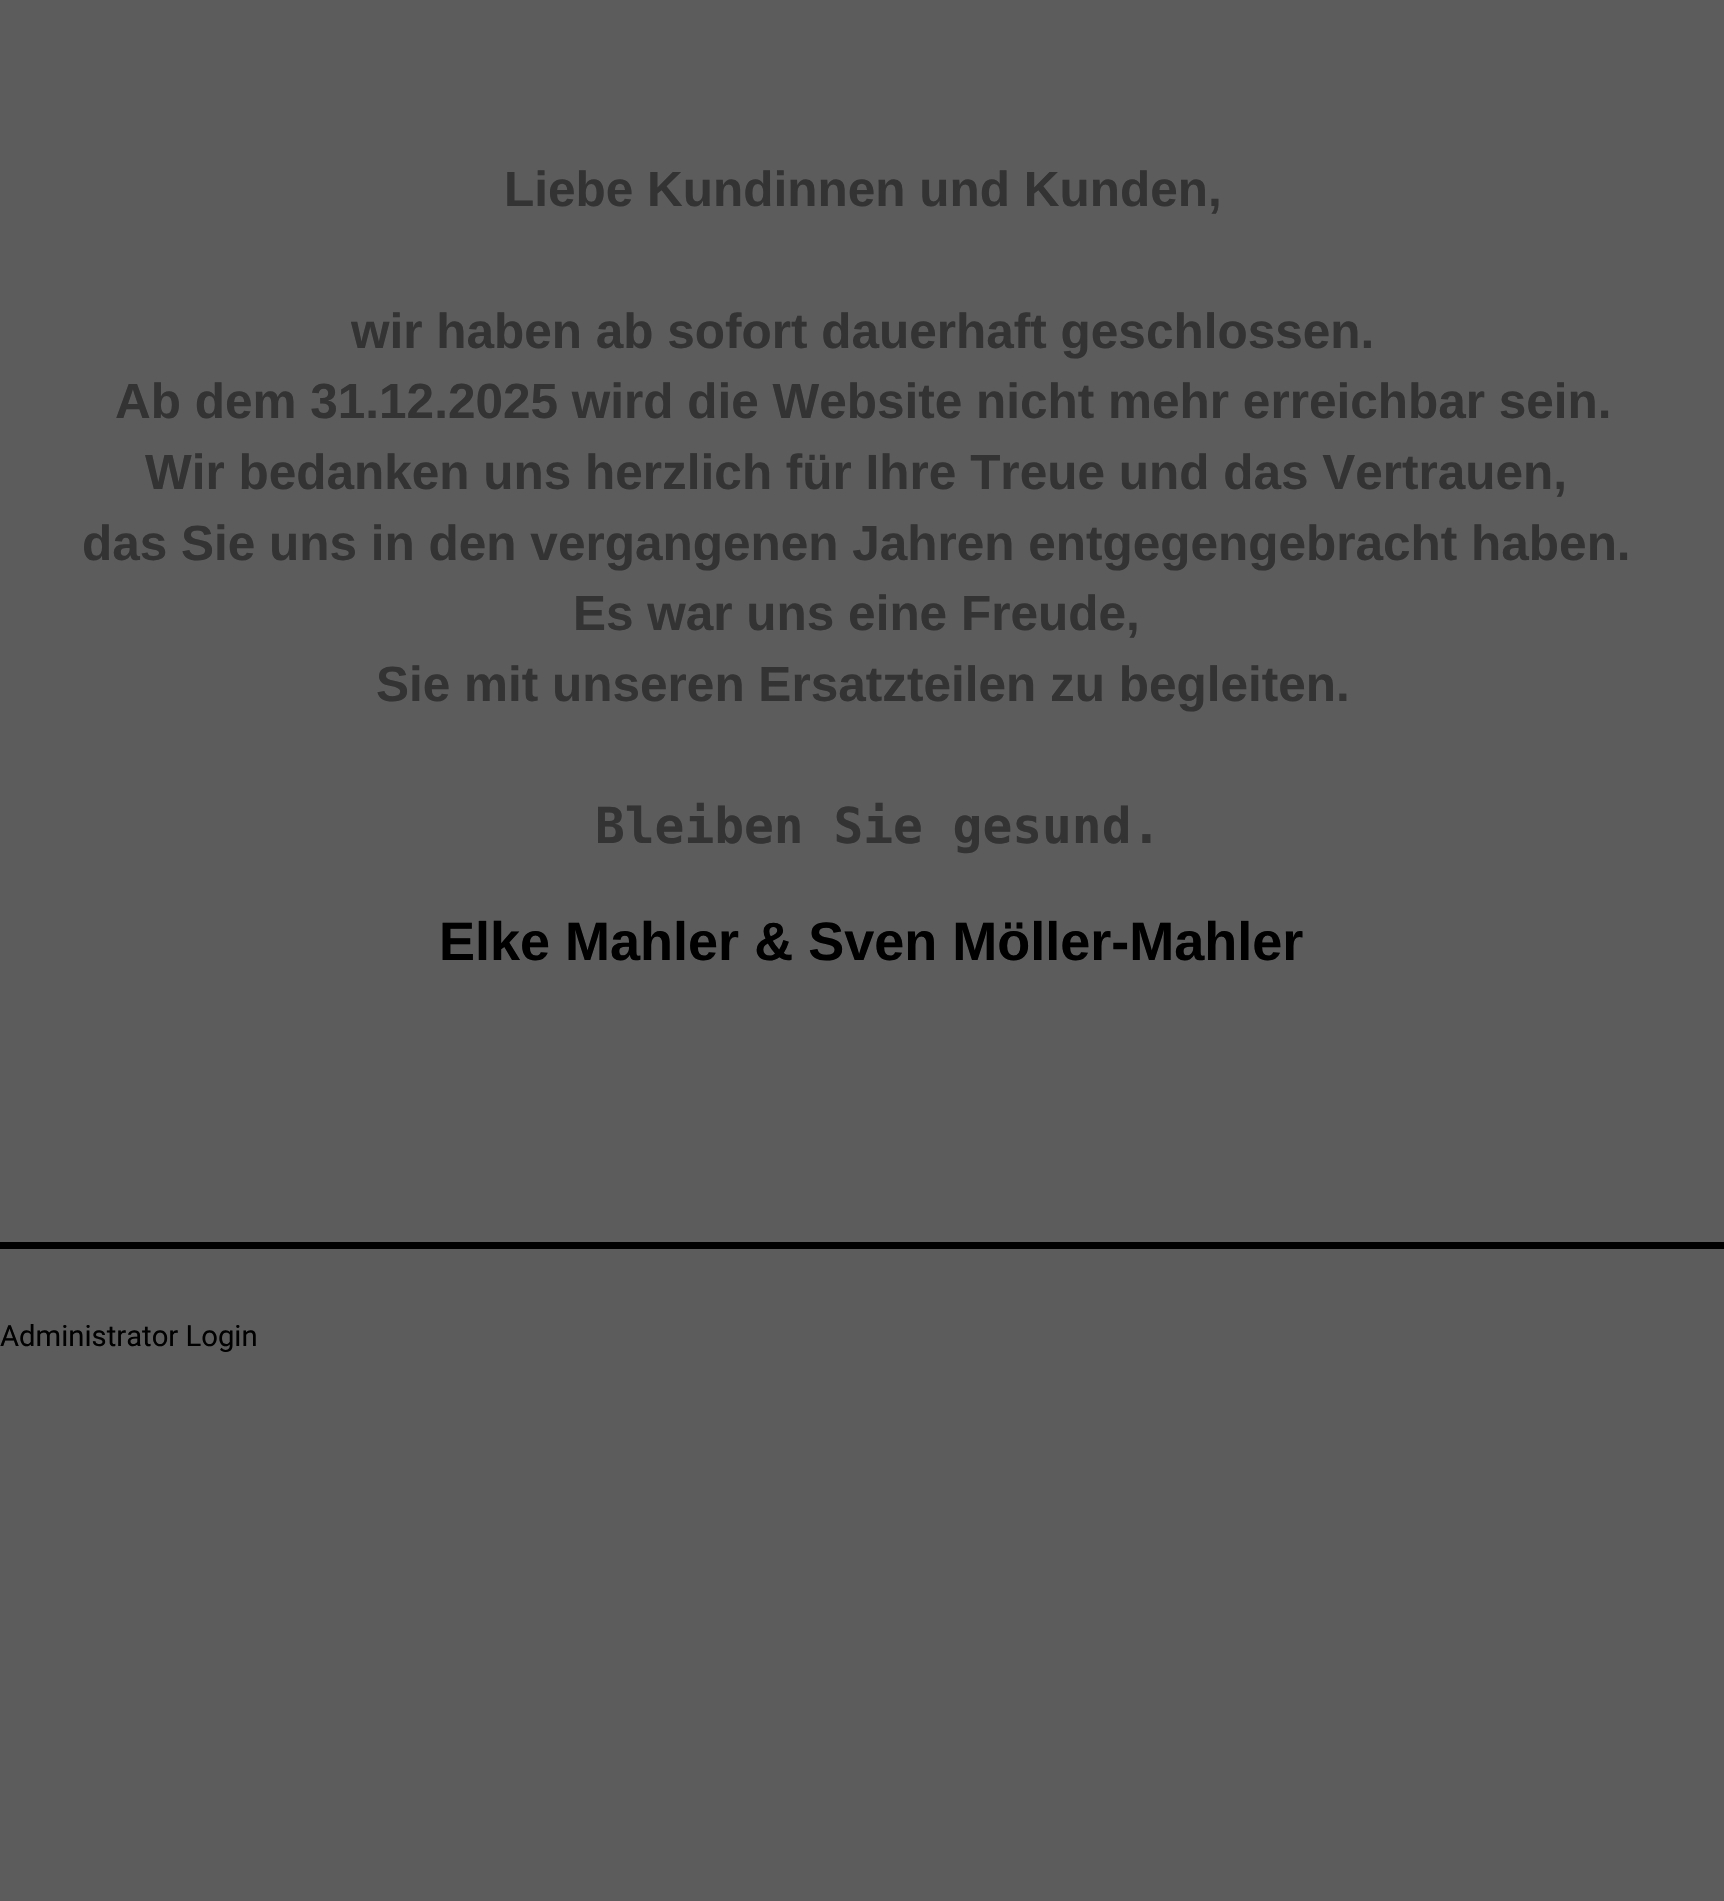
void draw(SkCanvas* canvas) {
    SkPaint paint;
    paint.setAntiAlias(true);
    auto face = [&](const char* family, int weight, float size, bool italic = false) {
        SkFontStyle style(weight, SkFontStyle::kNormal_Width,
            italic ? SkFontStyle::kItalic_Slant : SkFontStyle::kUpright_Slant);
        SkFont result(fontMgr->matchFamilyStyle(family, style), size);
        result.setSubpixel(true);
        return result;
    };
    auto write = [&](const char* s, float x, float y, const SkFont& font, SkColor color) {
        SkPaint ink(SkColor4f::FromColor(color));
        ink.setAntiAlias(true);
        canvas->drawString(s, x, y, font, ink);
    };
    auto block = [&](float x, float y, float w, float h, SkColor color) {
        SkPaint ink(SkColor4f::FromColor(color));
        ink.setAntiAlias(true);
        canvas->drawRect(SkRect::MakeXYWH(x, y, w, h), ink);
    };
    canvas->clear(SkColorSetRGB(92, 92, 92));
    auto kFont1 = face("Liberation Sans", 700, 49.5f);
    write("Liebe Kundinnen und Kunden,", 504, 206, kFont1, SkColorSetRGB(51, 51, 51));
    write("wir haben ab sofort dauerhaft geschlossen.", 351, 348, kFont1, SkColorSetRGB(51, 51, 51));
    write("Ab dem 31.12.2025 wird die Website nicht mehr erreichbar sein.", 115, 418, kFont1, SkColorSetRGB(51, 51, 51));
    write("Wir bedanken uns herzlich für Ihre Treue und das Vertrauen,", 145, 489, kFont1, SkColorSetRGB(51, 51, 51));
    write("das Sie uns in den vergangenen Jahren entgegengebracht haben.", 82, 560, kFont1, SkColorSetRGB(51, 51, 51));
    write("Es war uns eine Freude,", 573, 630, kFont1, SkColorSetRGB(51, 51, 51));
    write("Sie mit unseren Ersatzteilen zu begleiten.", 376, 701, kFont1, SkColorSetRGB(51, 51, 51));
    auto kFont2 = face("DejaVu Sans Mono", 700, 49.5f);
    write("Bleiben Sie gesund.", 595, 843, kFont2, SkColorSetRGB(51, 51, 51));
    auto kFont3 = face("Liberation Sans", 700, 54);
    write("Elke Mahler & Sven Möller-Mahler", 439, 960, kFont3, SK_ColorBLACK);
    block(0, 1242, 1724, 7, SK_ColorBLACK);
    auto kFont4 = face("Roboto", 400, 29.25f);
    write("Administrator Login", 0, 1346, kFont4, SK_ColorBLACK);
}
